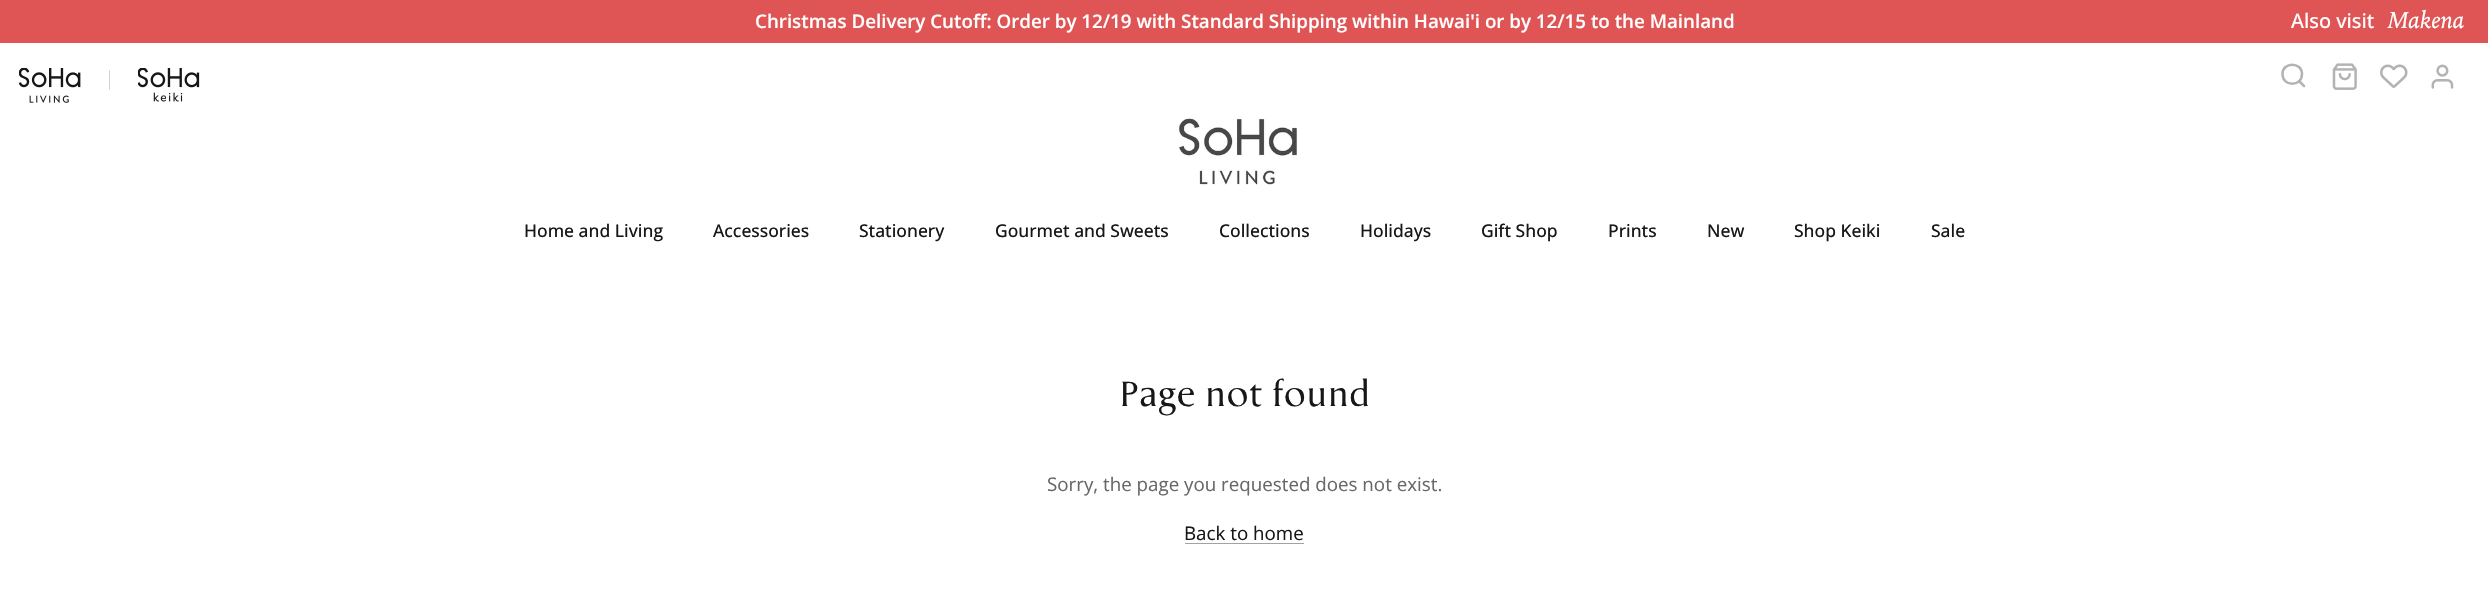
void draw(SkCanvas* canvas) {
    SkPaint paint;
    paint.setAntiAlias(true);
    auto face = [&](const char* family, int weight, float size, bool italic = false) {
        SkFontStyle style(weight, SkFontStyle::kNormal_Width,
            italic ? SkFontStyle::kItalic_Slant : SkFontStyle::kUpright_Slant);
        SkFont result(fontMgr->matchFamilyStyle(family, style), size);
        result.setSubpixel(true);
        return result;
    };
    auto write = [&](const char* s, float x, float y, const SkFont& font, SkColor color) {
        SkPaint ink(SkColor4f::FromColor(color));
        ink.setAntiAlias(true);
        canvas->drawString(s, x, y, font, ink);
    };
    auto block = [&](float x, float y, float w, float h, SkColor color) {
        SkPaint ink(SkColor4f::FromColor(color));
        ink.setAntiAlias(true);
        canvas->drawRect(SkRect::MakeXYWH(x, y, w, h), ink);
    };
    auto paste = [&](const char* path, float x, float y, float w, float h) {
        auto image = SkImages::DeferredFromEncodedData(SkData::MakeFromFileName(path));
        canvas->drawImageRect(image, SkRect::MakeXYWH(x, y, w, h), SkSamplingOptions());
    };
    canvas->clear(SK_ColorWHITE);
    block(0, 0, 2488, 43, SkColorSetRGB(223, 84, 84));
    auto kFont1 = face("Open Sans", 600, 18.75f);
    write("Christmas Delivery Cutoff: Order by 12/19 with Standard Shipping within Hawai'i or by 12/15 to the Mainland", 755, 28, kFont1, SK_ColorWHITE);
    auto kFont2 = face("Open Sans", 500, 20);
    write("Also visit", 2291, 28, kFont2, SK_ColorWHITE);
    auto kFont3 = face("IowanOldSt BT", 400, 24, true);
    write("Makena", 2388, 28, kFont3, SK_ColorWHITE);
    paste("pic1.png", 19, 68, 62, 35);
    block(109, 70, 1, 20, SkColorSetRGB(211, 211, 211));
    paste("pic2.png", 138, 68, 62, 34);
    paint.setStyle(SkPaint::kStroke_Style);
    paint.setStrokeWidth(2.5f);
    paint.setStrokeCap(SkPaint::kRound_Cap);
    paint.setStrokeJoin(SkPaint::kRound_Join);
    paint.setColor(SkColorSetRGB(179, 179, 179));
    canvas->drawPath(SkPathBuilder().moveTo(2304, 86).lineTo(2299, 81).moveTo(2302, 74).cubicTo(2302, 87, 2282.5f, 87, 2282.5f, 74).cubicTo(2282.5f, 61.5f, 2302, 61.5f, 2302, 74).close().detach(), paint);
    paste("pic3.png", 2332, 63, 25, 27);
    paste("pic4.png", 2380, 64, 28, 24);
    paste("pic5.png", 2431, 64, 23, 25);
    paste("pic6.png", 1179, 118, 118, 67);
    auto kFont4 = face("Open Sans", 500, 17.5f);
    write("Home and Living", 524, 237, kFont4, SkColorSetRGB(23, 23, 23));
    write("Accessories", 713, 237, kFont4, SkColorSetRGB(23, 23, 23));
    write("Stationery", 859, 237, kFont4, SkColorSetRGB(23, 23, 23));
    write("Gourmet and Sweets", 995, 237, kFont4, SkColorSetRGB(23, 23, 23));
    write("Collections", 1219, 237, kFont4, SkColorSetRGB(23, 23, 23));
    write("Holidays", 1360, 237, kFont4, SkColorSetRGB(23, 23, 23));
    write("Gift Shop", 1481, 237, kFont4, SkColorSetRGB(23, 23, 23));
    write("Prints", 1608, 237, kFont4, SkColorSetRGB(23, 23, 23));
    write("New", 1707, 237, kFont4, SkColorSetRGB(23, 23, 23));
    write("Shop Keiki", 1794, 237, kFont4, SkColorSetRGB(23, 23, 23));
    write("Sale", 1931, 237, kFont4, SkColorSetRGB(23, 23, 23));
    auto kFont5 = face("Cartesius", 400, 37.5f);
    write("Page not found", 1119, 406, kFont5, SkColorSetRGB(23, 23, 23));
    auto kFont6 = face("Open Sans", 400, 18.75f);
    write("Sorry, the page you requested does not exist.", 1047, 491, kFont6, SkColorSetRGB(103, 104, 105));
    write("Back to home", 1184, 540, kFont6, SkColorSetRGB(23, 23, 23));
    block(1185, 543, 119, 1, SkColorSetRGB(162, 162, 162));
}
